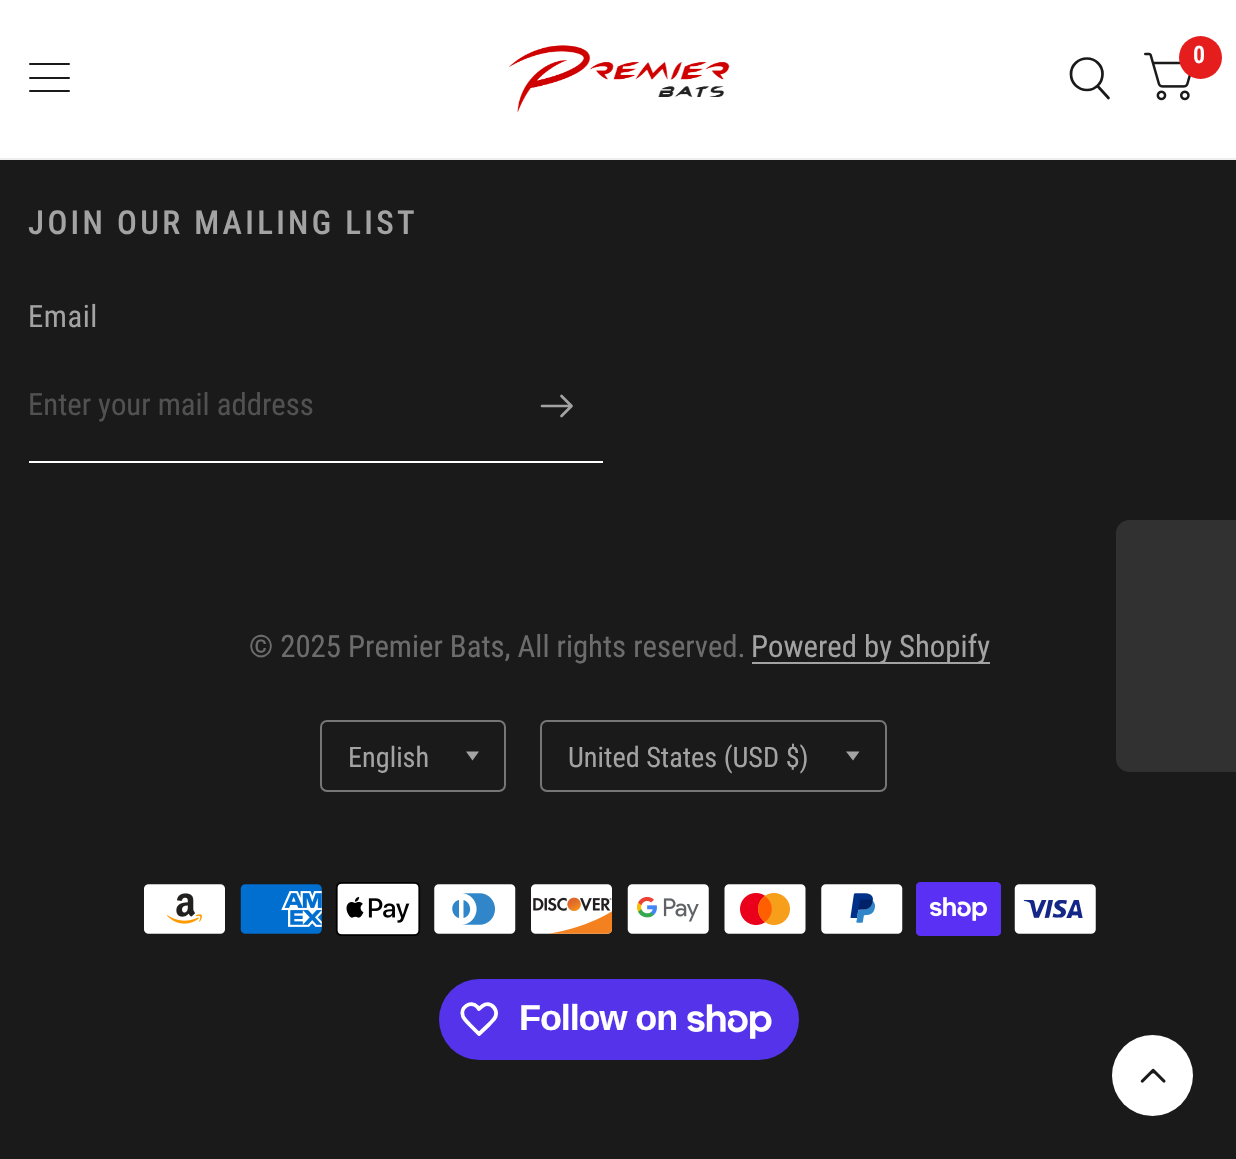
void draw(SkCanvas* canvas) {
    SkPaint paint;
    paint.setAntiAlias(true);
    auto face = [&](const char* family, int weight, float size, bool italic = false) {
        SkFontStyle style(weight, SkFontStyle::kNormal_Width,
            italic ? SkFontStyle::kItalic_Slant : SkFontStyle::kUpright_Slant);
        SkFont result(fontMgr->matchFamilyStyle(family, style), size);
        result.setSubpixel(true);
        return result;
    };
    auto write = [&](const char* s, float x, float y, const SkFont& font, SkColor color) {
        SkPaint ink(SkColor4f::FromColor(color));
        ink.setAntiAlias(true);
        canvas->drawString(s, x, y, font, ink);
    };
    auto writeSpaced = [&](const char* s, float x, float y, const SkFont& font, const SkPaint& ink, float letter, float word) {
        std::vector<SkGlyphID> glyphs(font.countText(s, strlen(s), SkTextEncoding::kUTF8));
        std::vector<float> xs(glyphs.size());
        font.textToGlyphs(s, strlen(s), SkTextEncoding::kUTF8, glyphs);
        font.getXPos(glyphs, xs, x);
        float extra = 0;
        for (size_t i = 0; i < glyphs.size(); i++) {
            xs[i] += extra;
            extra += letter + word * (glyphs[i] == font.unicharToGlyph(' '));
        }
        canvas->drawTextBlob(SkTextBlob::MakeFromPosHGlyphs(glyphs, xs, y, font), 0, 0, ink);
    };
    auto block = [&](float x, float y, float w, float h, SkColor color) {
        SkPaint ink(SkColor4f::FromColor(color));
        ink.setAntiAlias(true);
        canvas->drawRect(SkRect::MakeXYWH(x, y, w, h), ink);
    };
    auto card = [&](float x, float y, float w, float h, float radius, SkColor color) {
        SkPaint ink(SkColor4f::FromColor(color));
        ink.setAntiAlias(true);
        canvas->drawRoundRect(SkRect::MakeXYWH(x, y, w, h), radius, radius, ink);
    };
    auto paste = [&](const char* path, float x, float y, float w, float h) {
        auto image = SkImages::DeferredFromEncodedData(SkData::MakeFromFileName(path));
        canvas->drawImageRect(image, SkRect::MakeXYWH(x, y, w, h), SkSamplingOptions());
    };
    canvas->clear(SkColorSetRGB(26, 26, 26));
    block(0, 0, 1236, 158, SK_ColorWHITE);
    block(0, 158, 1236, 2, SkColorSetRGB(238, 238, 238));
    paste("pic1.png", 509, 45, 221, 68);
    paste("pic2.png", 1144, 52, 47, 49);
    paint.setColor(SkColorSetRGB(229, 29, 29));
    canvas->drawCircle(1200.5f, 57.5f, 21.5f, paint);
    auto kFont1 = face("Roboto Condensed", 600, 24);
    write("0", 1193, 63, kFont1, SK_ColorWHITE);
    paint.setStyle(SkPaint::kStroke_Style);
    paint.setStrokeWidth(2.7f);
    paint.setStrokeCap(SkPaint::kRound_Cap);
    paint.setStrokeJoin(SkPaint::kRound_Join);
    paint.setColor(SkColorSetRGB(26, 26, 26));
    canvas->drawPath(SkPathBuilder().moveTo(1098, 86.5f).lineTo(1108.5f, 98).moveTo(1102.5f, 74).cubicTo(1102.5f, 83, 1095.5f, 90, 1087, 90).cubicTo(1078, 90, 1071, 83, 1071, 74).cubicTo(1071, 65.5f, 1078, 58.5f, 1087, 58.5f).cubicTo(1095.5f, 58.5f, 1102.5f, 65.5f, 1102.5f, 74).close().detach(), paint);
    card(29, 63, 41, 2, 1, SkColorSetRGB(26, 26, 26));
    card(29, 77, 41, 2, 1, SkColorSetRGB(26, 26, 26));
    card(29, 90, 41, 2, 1, SkColorSetRGB(26, 26, 26));
    auto kFont2 = face("Roboto Condensed", 500, 33);
    paint.setStyle(SkPaint::kFill_Style);
    paint.setColor(SkColorSetRGB(163, 163, 163));
    writeSpaced("JOIN OUR MAILING LIST", 28, 234, kFont2, paint, 3.3f, 0);
    auto kFont3 = face("Roboto Condensed", 400, 30.75f);
    writeSpaced("Email", 28, 327, kFont3, paint, 0.5f, 0);
    block(29, 461, 574, 2, SK_ColorWHITE);
    write("Enter your mail address", 28, 415, kFont3, SkColorSetRGB(81, 81, 81));
    paint.setStyle(SkPaint::kStroke_Style);
    canvas->drawPath(SkPathBuilder().moveTo(542, 406).lineTo(569, 406).moveTo(561.5f, 396).lineTo(571.5f, 406).lineTo(561.5f, 416).detach(), paint);
    write("© 2025 Premier Bats, All rights reserved.", 249, 657, kFont3, SkColorSetRGB(108, 108, 108));
    block(752, 662, 238, 2, SkColorSetRGB(163, 163, 163));
    write("Powered by Shopify", 751, 657, kFont3, SkColorSetRGB(163, 163, 163));
    paint.setStrokeWidth(2);
    paint.setStrokeCap(SkPaint::kButt_Cap);
    paint.setStrokeJoin(SkPaint::kMiter_Join);
    paint.setColor(SkColorSetRGB(118, 118, 118));
    canvas->drawRoundRect(SkRect::MakeXYWH(321, 721, 184, 70), 6, 6, paint);
    auto kFont4 = face("Roboto Condensed", 400, 28.25f);
    write("English", 348, 767, kFont4, SkColorSetRGB(163, 163, 163));
    paint.setStyle(SkPaint::kFill_Style);
    paint.setColor(SkColorSetRGB(163, 163, 163));
    canvas->drawPath(SkPathBuilder().moveTo(466, 751.5f).lineTo(479, 751.5f).lineTo(472.5f, 760.5f).close().detach(), paint);
    paint.setStyle(SkPaint::kStroke_Style);
    paint.setColor(SkColorSetRGB(118, 118, 118));
    canvas->drawRoundRect(SkRect::MakeXYWH(541, 721, 345, 70), 6, 6, paint);
    write("United States (USD $)", 568, 767, kFont4, SkColorSetRGB(163, 163, 163));
    paint.setStyle(SkPaint::kFill_Style);
    paint.setColor(SkColorSetRGB(163, 163, 163));
    canvas->drawPath(SkPathBuilder().moveTo(846, 751.5f).lineTo(859.5f, 751.5f).lineTo(853, 760.5f).close().detach(), paint);
    paste("pic3.png", 144, 884, 81, 50);
    paste("pic4.png", 240, 884, 82, 50);
    paste("pic5.png", 335, 882, 86, 54);
    paste("pic6.png", 434, 884, 82, 50);
    paste("pic7.png", 531, 884, 82, 50);
    paste("pic8.png", 627, 884, 82, 50);
    paste("pic9.png", 724, 884, 82, 50);
    paste("pic10.png", 821, 884, 82, 50);
    paste("pic11.png", 916, 882, 85, 54);
    paste("pic12.png", 1014, 884, 82, 50);
    card(439, 979, 360, 81, 40.5f, SkColorSetRGB(84, 51, 235));
    paint.setStyle(SkPaint::kStroke_Style);
    paint.setStrokeWidth(3.8f);
    paint.setStrokeJoin(SkPaint::kRound_Join);
    paint.setColor(SK_ColorWHITE);
    canvas->drawPath(SkPathBuilder().moveTo(477.5f, 1007).lineTo(479, 1009).cubicTo(481, 1007, 482.5f, 1005.5f, 485, 1004.5f).cubicTo(491.5f, 1002.5f, 498, 1009.5f, 495.5f, 1016.5f).cubicTo(494.5f, 1019.5f, 491, 1022, 489, 1024.5f).lineTo(479, 1034).lineTo(469.5f, 1024.5f).cubicTo(467.5f, 1022, 464.5f, 1020, 463, 1016.5f).cubicTo(459.5f, 1007.5f, 470.5f, 1000, 477.5f, 1007).close().detach(), paint);
    auto kFont5 = face("Liberation Sans", 700, 36);
    paint.setStyle(SkPaint::kFill_Style);
    writeSpaced("Follow on", 519, 1030, kFont5, paint, -1.1f, 0);
    paste("pic13.png", 687, 1004, 85, 35);
    paint.setColor(SkColorSetRGB(49, 49, 49));
    canvas->drawPath(SkPathBuilder().moveTo(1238, 520).lineTo(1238, 772).lineTo(1130, 772).cubicTo(1122, 772, 1116, 766, 1116, 759).lineTo(1116, 533).cubicTo(1116, 526, 1122, 520, 1130, 520).close().detach(), paint);
    paint.setColor(SK_ColorWHITE);
    canvas->drawCircle(1152.5f, 1075.5f, 40.5f, paint);
    paste("pic14.png", 1140, 1068, 26, 15);
}
